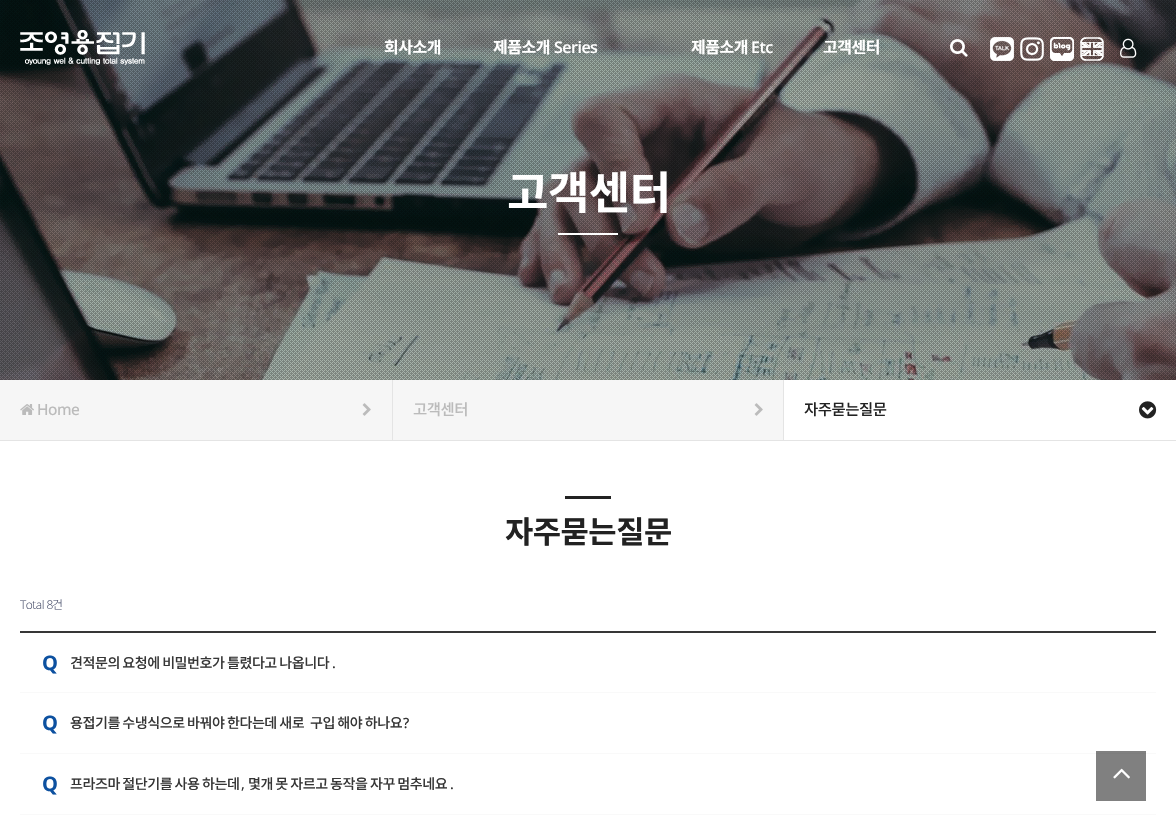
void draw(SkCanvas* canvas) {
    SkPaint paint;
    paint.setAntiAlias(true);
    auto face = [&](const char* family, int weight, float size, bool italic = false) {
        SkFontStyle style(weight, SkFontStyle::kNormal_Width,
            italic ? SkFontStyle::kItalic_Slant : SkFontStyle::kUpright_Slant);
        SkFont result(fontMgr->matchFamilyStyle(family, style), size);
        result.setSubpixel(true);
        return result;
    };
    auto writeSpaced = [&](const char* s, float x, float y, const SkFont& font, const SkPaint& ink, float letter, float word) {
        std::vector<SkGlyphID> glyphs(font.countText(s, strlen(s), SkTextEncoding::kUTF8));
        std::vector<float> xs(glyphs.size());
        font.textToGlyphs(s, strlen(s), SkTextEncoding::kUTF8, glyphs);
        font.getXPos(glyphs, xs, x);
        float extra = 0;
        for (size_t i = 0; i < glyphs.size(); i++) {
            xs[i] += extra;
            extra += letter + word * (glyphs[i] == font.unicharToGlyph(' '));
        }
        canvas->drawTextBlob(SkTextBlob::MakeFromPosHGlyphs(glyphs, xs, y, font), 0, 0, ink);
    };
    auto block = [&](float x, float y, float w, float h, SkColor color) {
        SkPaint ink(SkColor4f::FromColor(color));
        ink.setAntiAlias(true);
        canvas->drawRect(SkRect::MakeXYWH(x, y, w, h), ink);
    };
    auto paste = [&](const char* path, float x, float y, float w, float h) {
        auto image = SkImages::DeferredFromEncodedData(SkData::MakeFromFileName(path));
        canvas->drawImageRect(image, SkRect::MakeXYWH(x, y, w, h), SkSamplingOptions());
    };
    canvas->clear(SK_ColorWHITE);
    block(1096, 751, 50, 50, SkColorSetRGB(128, 128, 128));
    paste("pic8.png", 0, 0, 1176, 380);
    paste("pic1.png", 20, 30, 125, 35);
    auto kFont1 = face("Noto Sans KR", 700, 16);
    paint.setColor(SK_ColorWHITE);
    writeSpaced("회사소개", 384, 53, kFont1, paint, -0.5f, 0);
    writeSpaced("제품소개", 493, 53, kFont1, paint, -0.5f, 0);
    auto kFont2 = face("Open Sans", 600, 16);
    writeSpaced("Series", 554, 53, kFont2, paint, -0.5f, 0);
    writeSpaced("제품소개", 691, 53, kFont1, paint, -0.5f, 0);
    writeSpaced("Etc", 751, 53, kFont2, paint, -0.5f, 0);
    writeSpaced("고객센터", 823, 53, kFont1, paint, -0.5f, 0);
    paste("pic2.png", 950, 39, 18, 18);
    paste("pic3.png", 990, 37, 24, 24);
    paste("pic4.png", 1020, 37, 24, 24);
    paste("pic5.png", 1050, 37, 24, 24);
    paste("pic6.png", 1080, 37, 24, 24);
    paste("pic7.png", 1120, 38, 17, 20);
    auto kFont3 = face("Open Sans", 400, 11);
    paint.setColor(SkColorSetRGB(131, 143, 137));
    writeSpaced("LOG IN", 1114, 103, kFont3, paint, -0.5f, 0);
    auto kFont4 = face("Noto Sans KR", 700, 45);
    paint.setColor(SK_ColorWHITE);
    writeSpaced("고객센터", 507, 209, kFont4, paint, -0.5f, 0);
    block(558, 233, 60, 2, SK_ColorWHITE);
    block(0, 440, 1176, 1, SkColorSetRGB(228, 228, 228));
    block(0, 380, 392, 60, SkColorSetRGB(246, 246, 246));
    paste("pic9.png", 20, 404, 14, 11);
    auto kFont5 = face("Open Sans", 500, 15.5f);
    paint.setColor(SkColorSetRGB(187, 187, 187));
    writeSpaced("Home", 37, 415, kFont5, paint, -0.5f, 0);
    paste("pic10.png", 362, 403, 9, 13);
    block(393, 380, 390, 60, SkColorSetRGB(246, 246, 246));
    block(392, 380, 1, 60, SkColorSetRGB(228, 228, 228));
    auto kFont6 = face("Noto Sans KR", 500, 15.5f);
    writeSpaced("고객센터", 413, 415, kFont6, paint, -0.5f, 0);
    paste("pic10.png", 754, 403, 9, 13);
    block(783, 380, 1, 60, SkColorSetRGB(228, 228, 228));
    paint.setColor(SkColorSetRGB(34, 34, 34));
    writeSpaced("자주묻는질문", 804, 415, kFont6, paint, -0.5f, 0);
    paste("pic11.png", 1139, 401, 18, 18);
    block(565, 496, 46, 3, SkColorSetRGB(34, 34, 34));
    auto kFont7 = face("Noto Sans KR", 700, 30.75f);
    writeSpaced("자주묻는질문", 505, 543, kFont7, paint, -0.5f, 0);
    auto kFont8 = face("Open Sans", 300, 12);
    paint.setColor(SkColorSetRGB(78, 84, 111));
    writeSpaced("Total 8", 20, 609, kFont8, paint, -0.5f, 0);
    auto kFont9 = face("Noto Sans KR", 300, 12);
    writeSpaced("건", 52, 609, kFont9, paint, -0.5f, 0);
    block(20, 631, 1136, 2, SkColorSetRGB(54, 54, 54));
    block(20, 692, 1136, 1, SkColorSetRGB(249, 249, 249));
    auto kFont10 = face("Open Sans", 700, 20);
    paint.setColor(SkColorSetRGB(13, 81, 160));
    writeSpaced("Q", 42, 670, kFont10, paint, -0.5f, 0);
    auto kFont11 = face("Noto Sans KR", 500, 14.1f);
    paint.setColor(SkColorSetRGB(54, 54, 54));
    writeSpaced("견적문의 요청에 비밀번호가 틀렸다고 나옵니다", 70, 668, kFont11, paint, -0.5f, -0.25f);
    auto kFont12 = face("Open Sans", 500, 14.1f);
    writeSpaced(".", 332, 668, kFont12, paint, -0.5f, 0);
    block(20, 753, 1136, 1, SkColorSetRGB(249, 249, 249));
    block(1096, 753, 50, 1, SkColorSetRGB(125, 125, 125));
    paint.setColor(SkColorSetRGB(13, 81, 160));
    writeSpaced("Q", 42, 730, kFont10, paint, -0.5f, 0);
    paint.setColor(SkColorSetRGB(54, 54, 54));
    writeSpaced("용접기를 수냉식으로 바꿔야 한다는데 새로", 70, 728, kFont11, paint, -0.5f, -0.25f);
    writeSpaced("구입 해야 하나요", 310, 728, kFont11, paint, -0.5f, -0.25f);
    writeSpaced("?", 403, 728, kFont12, paint, -0.5f, 0);
    block(20, 814, 1136, 1, SkColorSetRGB(249, 249, 249));
    paint.setColor(SkColorSetRGB(13, 81, 160));
    writeSpaced("Q", 42, 791, kFont10, paint, -0.5f, 0);
    paint.setColor(SkColorSetRGB(54, 54, 54));
    writeSpaced("프라즈마 절단기를 사용 하는데", 70, 789, kFont11, paint, -0.5f, -0.25f);
    writeSpaced(",", 241, 789, kFont12, paint, -0.5f, 0);
    writeSpaced("몇개 못 자르고 동작을 자꾸 멈추네요", 248, 789, kFont11, paint, -0.5f, -0.25f);
    writeSpaced(".", 450, 789, kFont12, paint, -0.5f, 0);
    paste("pic12.png", 1113, 768, 17, 11);
}
